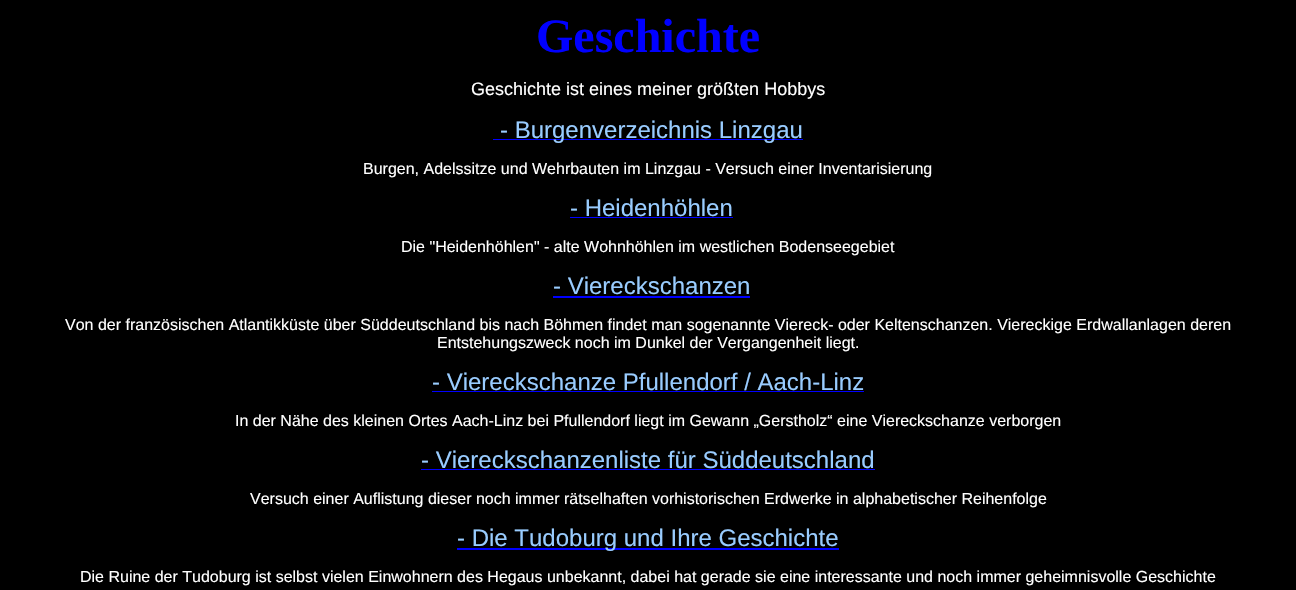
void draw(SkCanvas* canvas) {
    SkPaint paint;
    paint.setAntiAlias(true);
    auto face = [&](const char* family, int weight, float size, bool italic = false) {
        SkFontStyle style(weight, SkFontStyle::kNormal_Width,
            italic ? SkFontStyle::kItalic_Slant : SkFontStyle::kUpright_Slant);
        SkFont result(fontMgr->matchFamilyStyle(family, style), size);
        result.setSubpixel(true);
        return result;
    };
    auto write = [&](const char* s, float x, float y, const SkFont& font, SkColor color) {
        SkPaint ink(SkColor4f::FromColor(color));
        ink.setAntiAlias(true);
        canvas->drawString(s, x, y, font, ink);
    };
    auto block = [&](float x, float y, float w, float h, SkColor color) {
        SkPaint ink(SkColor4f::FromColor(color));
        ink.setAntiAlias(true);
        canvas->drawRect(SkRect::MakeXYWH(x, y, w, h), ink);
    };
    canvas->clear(SK_ColorBLACK);
    auto kFont1 = face("Liberation Serif", 700, 48);
    write("Geschichte", 536, 52, kFont1, SkColorSetRGB(0, 0, 255));
    auto kFont2 = face("Liberation Sans", 400, 18);
    write("Geschichte ist eines meiner größten Hobbys", 471, 95, kFont2, SK_ColorWHITE);
    block(493, 139, 310, 1, SkColorSetRGB(0, 0, 255));
    auto kFont3 = face("Liberation Sans", 400, 24);
    write("- Burgenverzeichnis Linzgau", 500, 138, kFont3, SkColorSetRGB(153, 204, 255));
    auto kFont4 = face("Liberation Sans", 400, 16);
    write("Burgen, Adelssitze und Wehrbauten im Linzgau - Versuch einer Inventarisierung", 363, 174, kFont4, SK_ColorWHITE);
    write("- Heidenhöhlen", 570, 216, kFont3, SkColorSetRGB(153, 204, 255));
    block(570, 217, 163, 1, SkColorSetRGB(0, 0, 255));
    write("Die \"Heidenhöhlen\" - alte Wohnhöhlen im westlichen Bodenseegebiet", 401, 252, kFont4, SK_ColorWHITE);
    write("- Viereckschanzen", 553, 294, kFont3, SkColorSetRGB(153, 204, 255));
    block(553, 296, 197, 2, SkColorSetRGB(0, 0, 255));
    write("Von der französischen Atlantikküste über Süddeutschland bis nach Böhmen findet man sogenannte Viereck- oder Keltenschanzen. Viereckige Erdwallanlagen deren", 65, 330, kFont4, SK_ColorWHITE);
    write("Entstehungszweck noch im Dunkel der Vergangenheit liegt.", 437, 348, kFont4, SK_ColorWHITE);
    write("- Viereckschanze Pfullendorf / Aach-Linz", 432, 390, kFont3, SkColorSetRGB(153, 204, 255));
    block(432, 391, 432, 1, SkColorSetRGB(0, 0, 255));
    write("In der Nähe des kleinen Ortes Aach-Linz bei Pfullendorf liegt im Gewann „Gerstholz“ eine Viereckschanze verborgen", 235, 426, kFont4, SK_ColorWHITE);
    write("- Viereckschanzenliste für Süddeutschland", 421, 468, kFont3, SkColorSetRGB(153, 204, 255));
    block(421, 469, 454, 1, SkColorSetRGB(0, 0, 255));
    write("Versuch einer Auflistung dieser noch immer rätselhaften vorhistorischen Erdwerke in alphabetischer Reihenfolge", 250, 504, kFont4, SK_ColorWHITE);
    block(457, 548, 382, 2, SkColorSetRGB(0, 0, 255));
    write("- Die Tudoburg und Ihre Geschichte", 457, 546, kFont3, SkColorSetRGB(153, 204, 255));
    write("Die Ruine der Tudoburg ist selbst vielen Einwohnern des Hegaus unbekannt, dabei hat gerade sie eine interessante und noch immer geheimnisvolle Geschichte", 80, 582, kFont4, SK_ColorWHITE);
}
